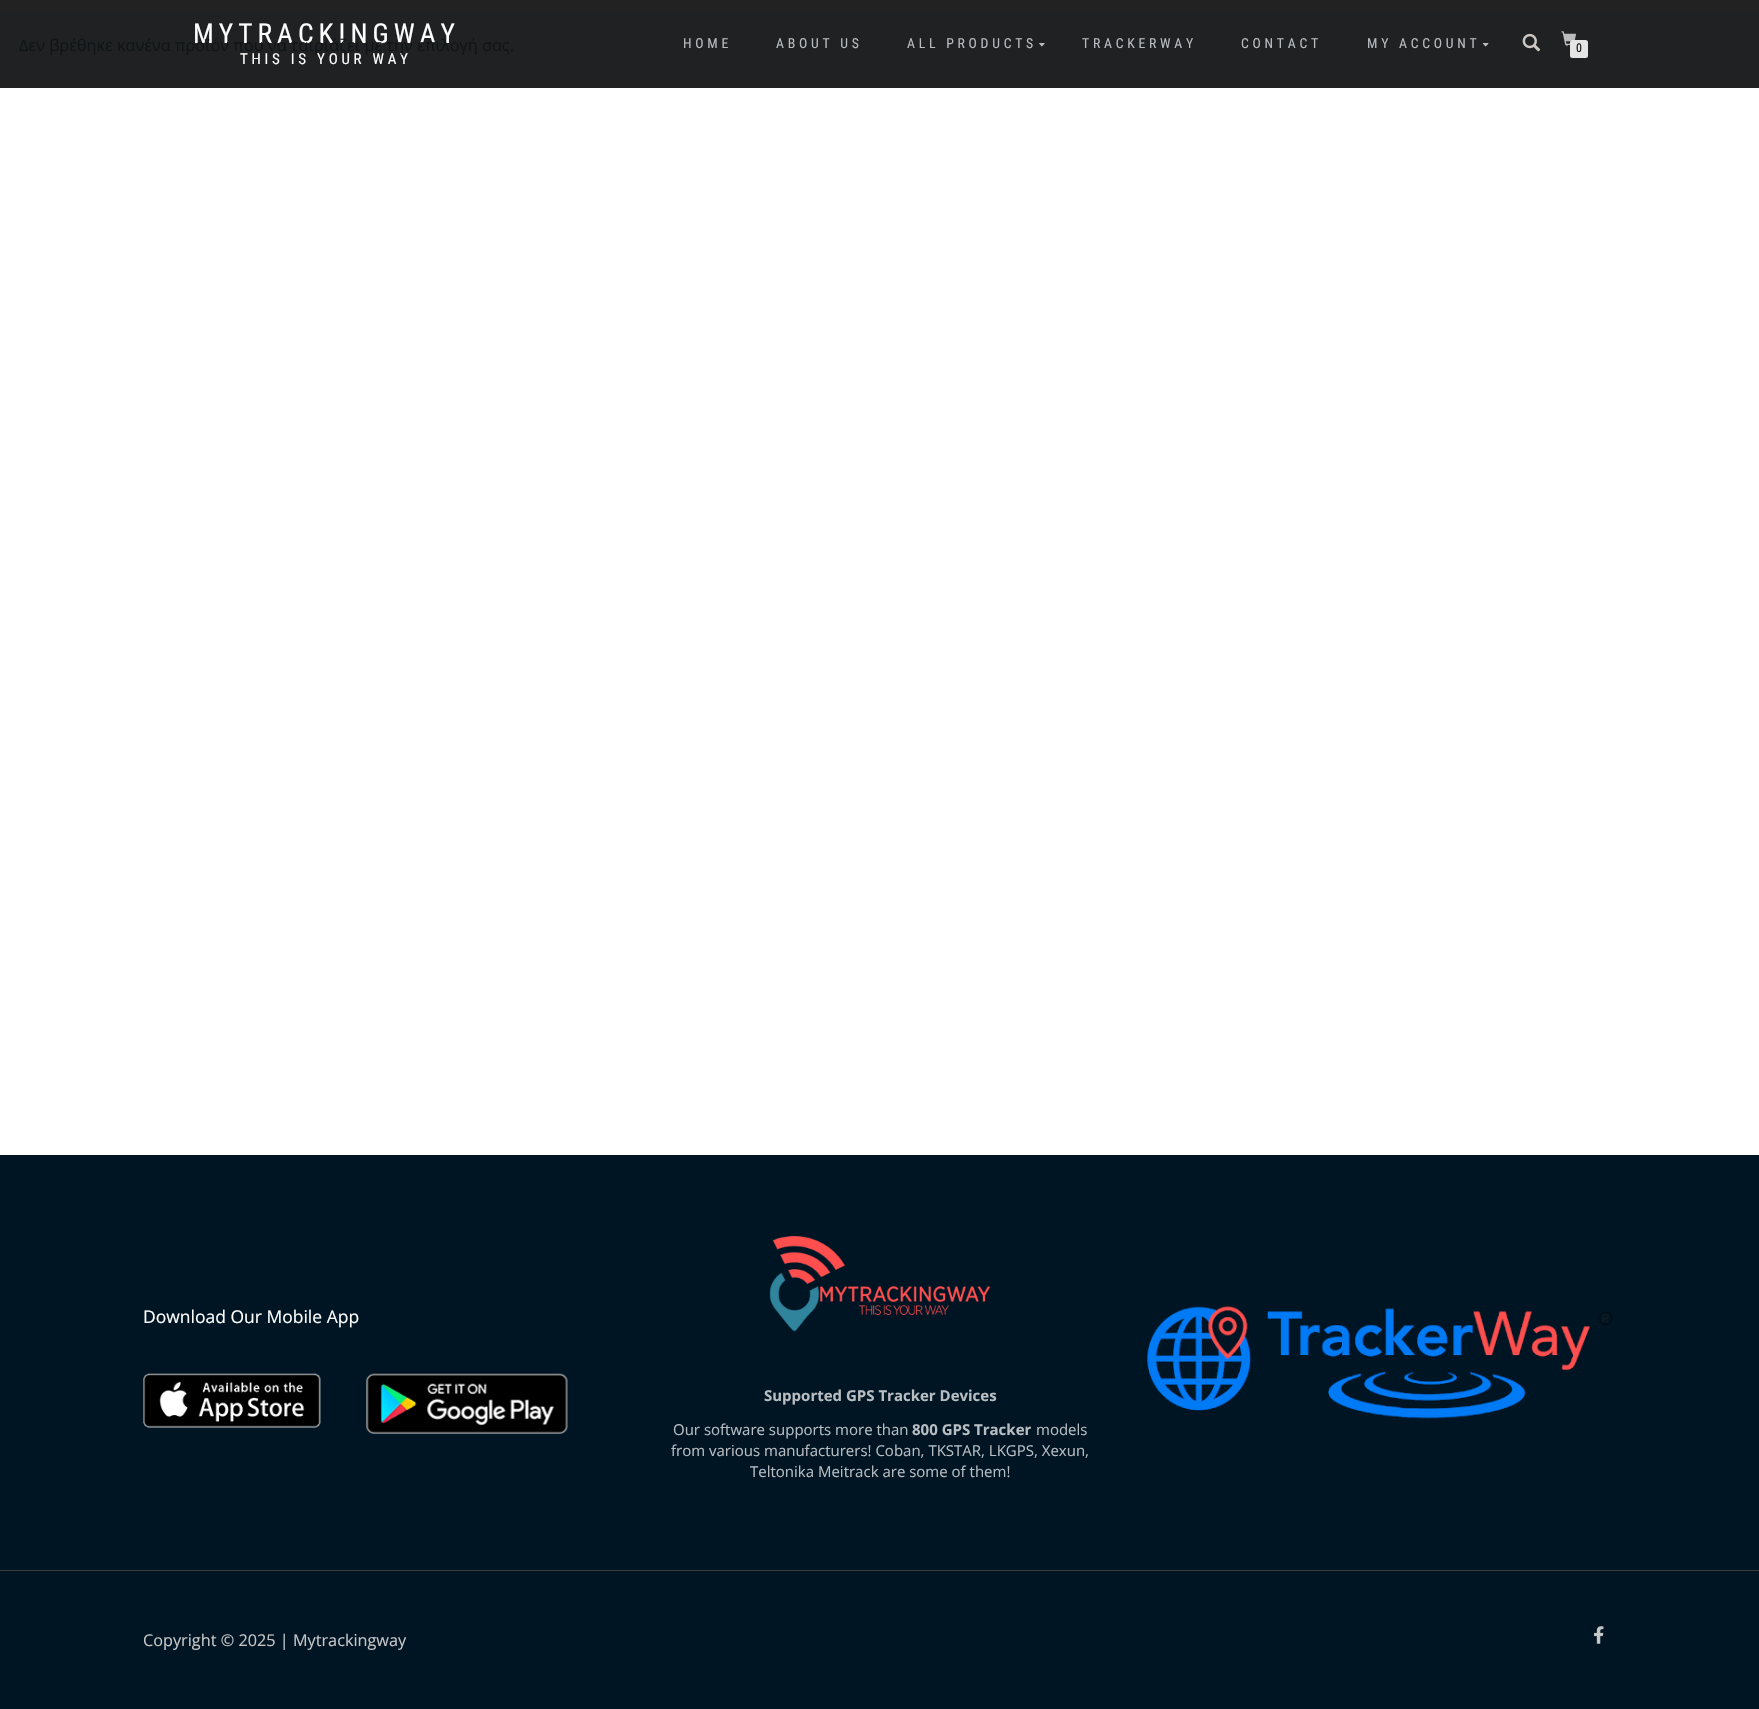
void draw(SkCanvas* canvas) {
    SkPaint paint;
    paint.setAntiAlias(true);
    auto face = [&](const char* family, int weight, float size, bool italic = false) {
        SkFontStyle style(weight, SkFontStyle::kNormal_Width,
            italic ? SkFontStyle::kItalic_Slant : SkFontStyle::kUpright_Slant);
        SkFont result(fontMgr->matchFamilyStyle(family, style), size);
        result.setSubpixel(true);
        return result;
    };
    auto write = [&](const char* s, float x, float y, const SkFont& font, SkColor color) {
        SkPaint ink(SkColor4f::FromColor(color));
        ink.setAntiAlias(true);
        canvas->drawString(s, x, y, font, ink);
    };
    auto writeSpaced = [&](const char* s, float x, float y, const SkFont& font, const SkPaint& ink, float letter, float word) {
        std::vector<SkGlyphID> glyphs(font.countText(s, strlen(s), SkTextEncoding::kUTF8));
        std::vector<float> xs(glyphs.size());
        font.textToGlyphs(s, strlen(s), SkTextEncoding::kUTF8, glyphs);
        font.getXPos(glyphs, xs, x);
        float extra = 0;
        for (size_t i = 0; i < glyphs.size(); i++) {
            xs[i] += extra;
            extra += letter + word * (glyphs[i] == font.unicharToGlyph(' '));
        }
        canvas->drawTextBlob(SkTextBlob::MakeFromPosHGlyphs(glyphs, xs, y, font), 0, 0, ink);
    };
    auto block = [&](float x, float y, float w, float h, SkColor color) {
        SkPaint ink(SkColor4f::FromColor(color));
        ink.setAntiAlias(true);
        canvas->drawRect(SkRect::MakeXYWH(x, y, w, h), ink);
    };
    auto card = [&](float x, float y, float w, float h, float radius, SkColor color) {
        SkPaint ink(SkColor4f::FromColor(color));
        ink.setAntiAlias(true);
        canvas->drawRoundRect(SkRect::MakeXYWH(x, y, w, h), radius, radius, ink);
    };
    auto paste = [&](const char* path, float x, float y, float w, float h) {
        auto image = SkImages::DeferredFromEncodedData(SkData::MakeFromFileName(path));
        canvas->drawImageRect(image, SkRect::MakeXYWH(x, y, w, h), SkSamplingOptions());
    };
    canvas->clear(SK_ColorWHITE);
    block(0, 0, 1759, 88, SkColorSetRGB(34, 34, 34));
    card(0, 13, 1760, 66, 2.5f, SkColorSetRGB(31, 33, 34));
    auto kFont1 = face("Roboto Condensed", 400, 27.5f);
    paint.setColor(SK_ColorWHITE);
    writeSpaced("MYTRACKINGWAY", 193, 43, kFont1, paint, 5, 0);
    auto kFont2 = face("Roboto Condensed", 400, 15);
    writeSpaced("THIS IS YOUR WAY", 240, 64, kFont2, paint, 3.75f, 0);
    auto kFont3 = face("Roboto Condensed", 400, 13.75f);
    paint.setColor(SkColorSetRGB(184, 189, 194));
    writeSpaced("HOME", 683, 48, kFont3, paint, 3.75f, 0);
    writeSpaced("ABOUT US", 776, 48, kFont3, paint, 3.75f, 0);
    writeSpaced("ALL PRODUCTS", 907, 48, kFont3, paint, 3.75f, 0);
    paste("pic1.png", 1039, 43, 6, 4);
    writeSpaced("TRACKERWAY", 1082, 48, kFont3, paint, 3.75f, 0);
    writeSpaced("CONTACT", 1241, 48, kFont3, paint, 3.75f, 0);
    writeSpaced("MY ACCOUNT", 1367, 48, kFont3, paint, 3.75f, 0);
    paste("pic2.png", 1482, 43, 7, 4);
    paste("pic3.png", 1522, 33, 19, 19);
    paste("pic4.png", 1561, 31, 15, 16);
    card(1570, 40, 18, 18, 2.5f, SkColorSetRGB(229, 229, 229));
    auto kFont4 = face("Roboto Condensed", 400, 12);
    write("0", 1576, 52, kFont4, SkColorSetRGB(17, 17, 17));
    auto kFont5 = face("Open Sans", 400, 16.25f);
    write("Δεν βρέθηκε κανένα προϊόν που να ταιριάζει με την επιλογή σας.", 19, 51, kFont5, SkColorSetRGB(14, 20, 23));
    block(0, 1155, 1759, 415, SkColorSetRGB(0, 21, 36));
    auto kFont6 = face("Open Sans", 400, 17.5f);
    write("Download Our Mobile App", 143, 1323, kFont6, SK_ColorWHITE);
    paste("pic5.png", 143, 1373, 178, 55);
    paste("pic6.png", 366, 1373, 202, 61);
    paste("pic7.png", 1147, 1305, 466, 114);
    paste("pic8.png", 769, 1236, 222, 96);
    auto kFont7 = face("Open Sans", 700, 15);
    write("Supported GPS Tracker Devices", 764, 1401, kFont7, SkColorSetRGB(184, 189, 194));
    auto kFont8 = face("Open Sans", 400, 15);
    write("Our software supports more than", 673, 1435, kFont8, SkColorSetRGB(184, 189, 194));
    write("800 GPS Tracker", 912, 1435, kFont7, SkColorSetRGB(184, 189, 194));
    write("models", 1036, 1435, kFont8, SkColorSetRGB(184, 189, 194));
    write("from various manufacturers! Coban, TKSTAR, LKGPS, Xexun,", 671, 1456, kFont8, SkColorSetRGB(184, 189, 194));
    write("Teltonika Meitrack are some of them!", 750, 1477, kFont8, SkColorSetRGB(184, 189, 194));
    block(0, 1571, 1759, 138, SkColorSetRGB(0, 21, 36));
    block(0, 1570, 1759, 1, SkColorSetRGB(61, 61, 61));
    write("Copyright © 2025 | Mytrackingway", 143, 1646, kFont5, SkColorSetRGB(198, 198, 198));
    paste("pic9.png", 1594, 1626, 10, 18);
}
